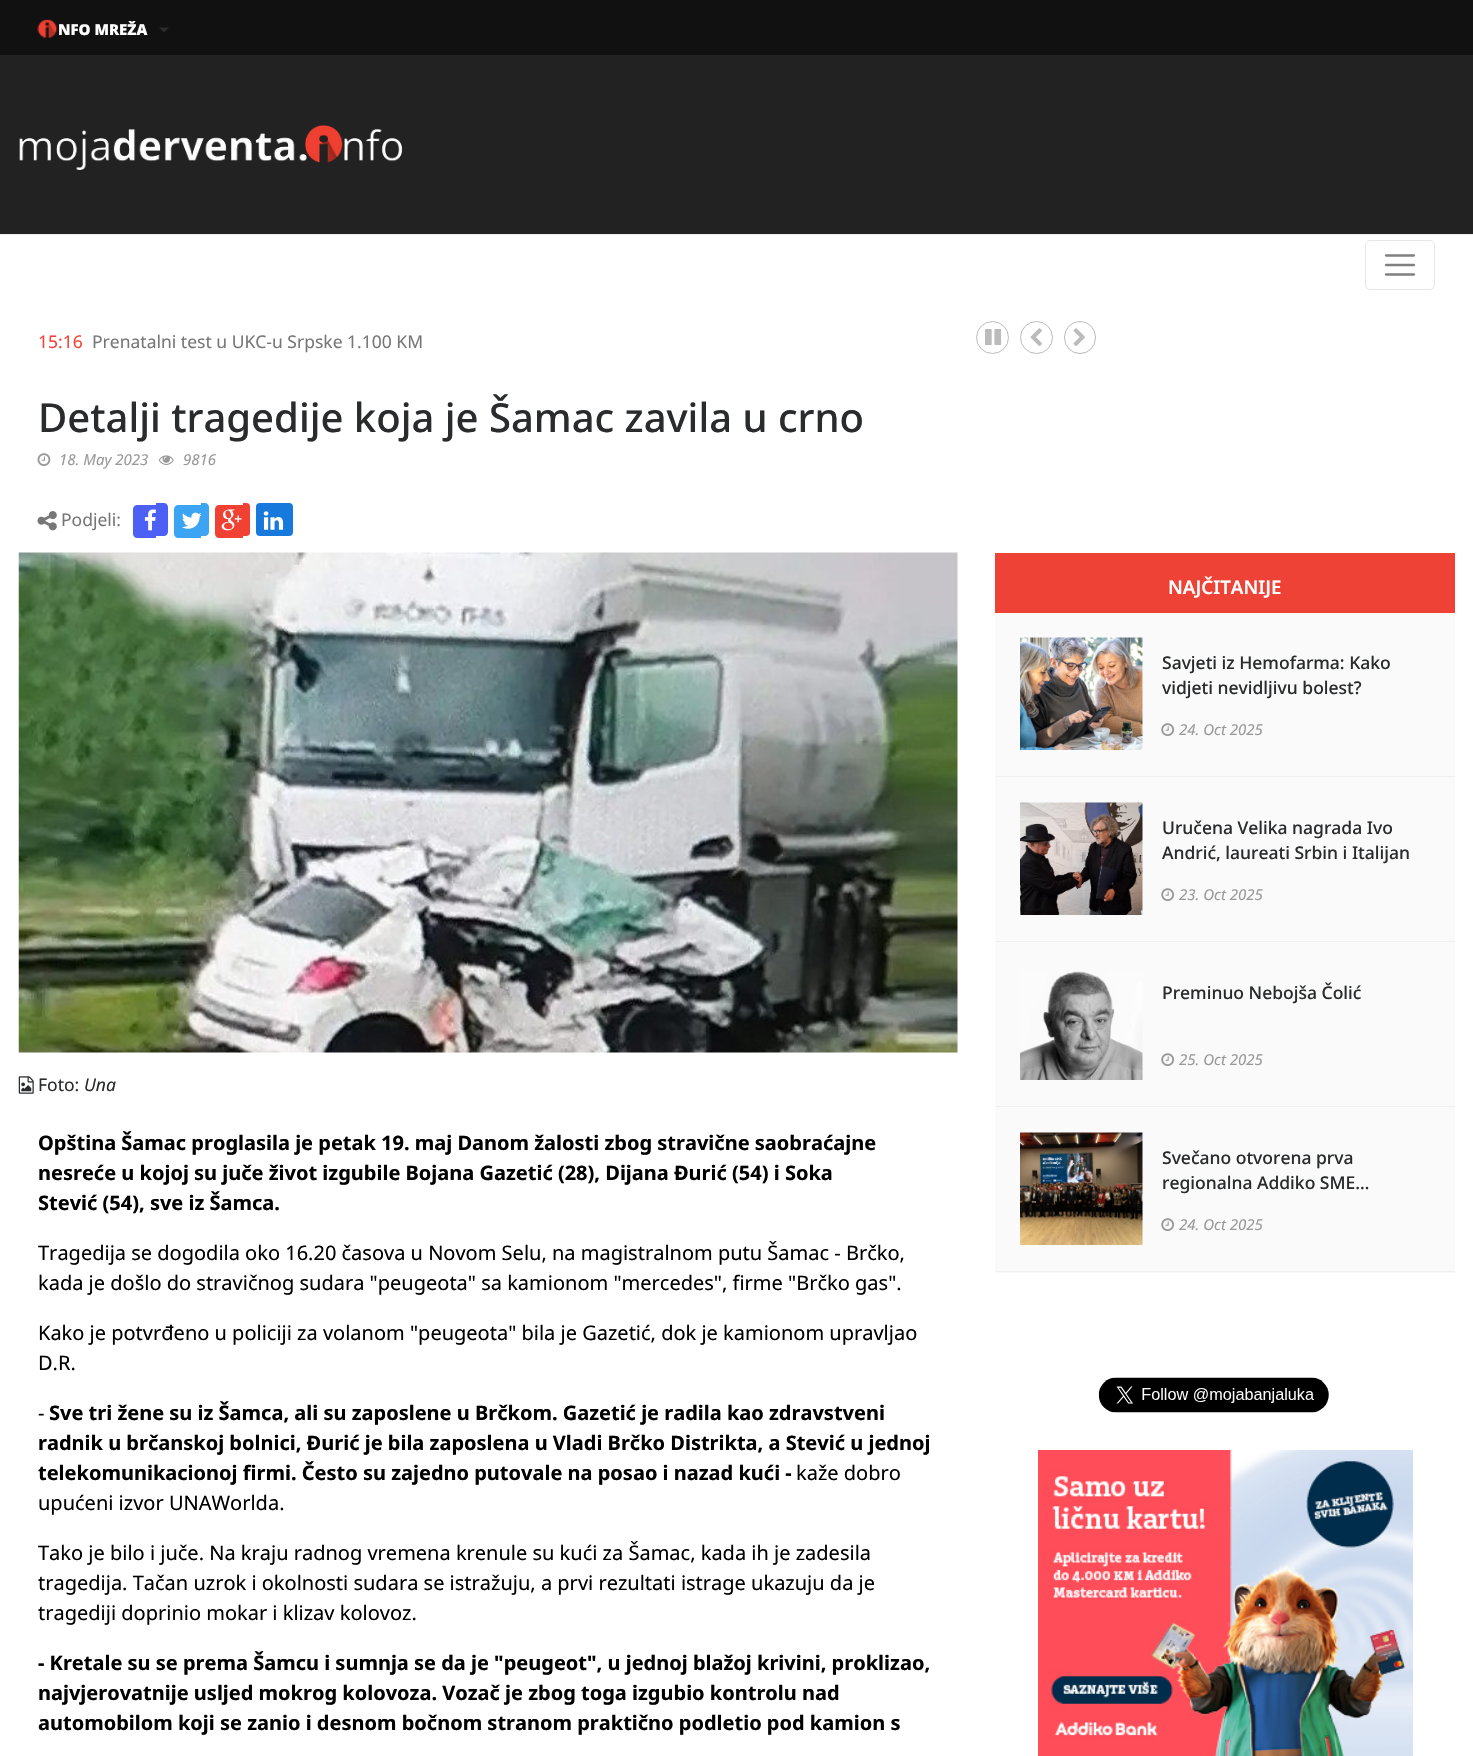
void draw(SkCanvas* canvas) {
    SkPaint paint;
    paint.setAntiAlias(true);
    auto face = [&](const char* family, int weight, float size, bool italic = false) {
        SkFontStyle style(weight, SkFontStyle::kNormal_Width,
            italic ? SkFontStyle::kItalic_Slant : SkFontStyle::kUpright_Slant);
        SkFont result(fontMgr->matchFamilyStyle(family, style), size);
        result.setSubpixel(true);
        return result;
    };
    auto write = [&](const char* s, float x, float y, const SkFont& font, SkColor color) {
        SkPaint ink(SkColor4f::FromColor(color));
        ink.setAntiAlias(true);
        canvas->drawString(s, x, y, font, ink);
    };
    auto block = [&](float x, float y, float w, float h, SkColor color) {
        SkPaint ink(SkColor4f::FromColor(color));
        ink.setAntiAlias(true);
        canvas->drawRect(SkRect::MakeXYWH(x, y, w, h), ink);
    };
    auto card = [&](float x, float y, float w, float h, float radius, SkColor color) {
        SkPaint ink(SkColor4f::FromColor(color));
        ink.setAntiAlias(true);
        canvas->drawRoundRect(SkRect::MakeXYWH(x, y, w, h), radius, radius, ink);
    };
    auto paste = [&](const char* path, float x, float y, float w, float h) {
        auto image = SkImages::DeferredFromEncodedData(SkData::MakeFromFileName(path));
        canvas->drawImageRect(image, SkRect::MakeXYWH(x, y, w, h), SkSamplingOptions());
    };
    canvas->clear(SK_ColorWHITE);
    block(0, 0, 1473, 55, SkColorSetRGB(17, 17, 17));
    paste("pic1.png", 37, 19, 21, 20);
    auto kFont1 = face("Noto Sans", 900, 15);
    write("NFO MREŽA", 58, 35, kFont1, SK_ColorWHITE);
    paint.setColor(SkColorSetRGB(41, 43, 44));
    canvas->drawPath(SkPathBuilder().moveTo(159, 27.5f).lineTo(169, 27.5f).lineTo(164, 32.5f).close().detach(), paint);
    block(0, 55, 1473, 179, SkColorSetRGB(34, 34, 34));
    paste("pic2.png", 19, 125, 384, 45);
    block(0, 234, 1473, 1, SkColorSetRGB(237, 237, 237));
    paint.setStyle(SkPaint::kStroke_Style);
    paint.setStrokeWidth(1);
    paint.setColor(SkColorSetRGB(230, 230, 230));
    canvas->drawRoundRect(SkRect::MakeXYWH(1365.5f, 240.5f, 69, 49), 4.5f, 4.5f, paint);
    paint.setStrokeWidth(2.3f);
    paint.setStrokeCap(SkPaint::kRound_Cap);
    paint.setColor(SkColorSetRGB(128, 128, 128));
    canvas->drawPath(SkPathBuilder().moveTo(1386, 255.5f).lineTo(1414, 255.5f).moveTo(1386, 265).lineTo(1414, 265).moveTo(1386, 274.5f).lineTo(1414, 274.5f).detach(), paint);
    auto kFont2 = face("Noto Sans", 400, 17.5f);
    write("15:16", 38, 348, kFont2, SkColorSetRGB(244, 67, 54));
    write("Prenatalni test u UKC-u Srpske 1.100 KM", 92, 348, kFont2, SkColorSetRGB(119, 119, 119));
    paint.setStrokeWidth(1);
    paint.setStrokeCap(SkPaint::kButt_Cap);
    paint.setColor(SkColorSetRGB(187, 187, 187));
    canvas->drawCircle(992.5f, 337.5f, 16, paint);
    paste("pic3.png", 985, 329, 17, 17);
    canvas->drawCircle(1036.5f, 337.5f, 16, paint);
    paste("pic4.png", 1030, 328, 12, 18);
    canvas->drawRoundRect(SkRect::MakeXYWH(1064.5f, 321.5f, 31, 32), 15.5f, 15.5f, paint);
    paste("pic5.png", 1073, 328, 12, 18);
    auto kFont3 = face("Noto Sans", 500, 40);
    write("Detalji tragedije koja je Šamac zavila u crno", 38, 432, kFont3, SkColorSetRGB(41, 43, 44));
    paste("pic6.png", 37, 453, 14, 13);
    auto kFont4 = face("Noto Sans", 400, 15, true);
    write("18. May 2023", 59, 465, kFont4, SkColorSetRGB(153, 153, 153));
    paste("pic7.png", 158, 455, 16, 10);
    write("9816", 183, 465, kFont4, SkColorSetRGB(153, 153, 153));
    paste("pic8.png", 37, 511, 20, 20);
    write("Podjeli:", 61, 526, kFont2, SkColorSetRGB(119, 119, 119));
    paint.setStyle(SkPaint::kFill_Style);
    paint.setColor(SkColorSetRGB(76, 96, 246));
    canvas->drawPath(SkPathBuilder().moveTo(137, 505).lineTo(156, 505).lineTo(156, 538).lineTo(137, 538).cubicTo(135, 538, 133, 536, 133, 534).lineTo(133, 509).cubicTo(133, 507, 135, 505, 137, 505).close().detach(), paint);
    canvas->drawPath(SkPathBuilder().moveTo(156, 503).lineTo(164, 503).cubicTo(166, 503, 168, 505, 168, 507).lineTo(168, 532).cubicTo(168, 534, 166, 536, 164, 536).lineTo(156, 536).close().detach(), paint);
    paste("pic9.png", 144, 509, 12, 22);
    paint.setColor(SkColorSetRGB(60, 165, 243));
    canvas->drawPath(SkPathBuilder().moveTo(178, 505).lineTo(201, 505).lineTo(201, 538).lineTo(178, 538).cubicTo(176, 538, 174, 536, 174, 534).lineTo(174, 509).cubicTo(174, 507, 176, 505, 178, 505).close().detach(), paint);
    canvas->drawPath(SkPathBuilder().moveTo(201, 503).lineTo(205, 503).cubicTo(207, 503, 209, 505, 209, 507).lineTo(209, 532).cubicTo(209, 534, 207, 536, 205, 536).lineTo(201, 536).close().detach(), paint);
    paste("pic10.png", 182, 512, 20, 17);
    paint.setColor(SkColorSetRGB(241, 65, 51));
    canvas->drawPath(SkPathBuilder().moveTo(219, 505).lineTo(243, 505).lineTo(243, 538).lineTo(219, 538).cubicTo(217, 538, 215, 536, 215, 534).lineTo(215, 509).cubicTo(215, 507, 217, 505, 219, 505).close().detach(), paint);
    canvas->drawPath(SkPathBuilder().moveTo(243, 503).lineTo(246.5f, 503).cubicTo(248.5f, 503, 250, 504.5f, 250, 506.5f).lineTo(250, 532.5f).cubicTo(250, 534.5f, 248.5f, 536, 246.5f, 536).lineTo(243, 536).close().detach(), paint);
    paste("pic11.png", 221, 509, 21, 22);
    card(256, 503, 37, 33, 4, SkColorSetRGB(24, 121, 221));
    paste("pic12.png", 263, 511, 21, 19);
    block(995, 553, 460, 60, SkColorSetRGB(238, 66, 54));
    auto kFont5 = face("Noto Sans", 600, 18.75f);
    write("NAJČITANIJE", 1168, 594, kFont5, SK_ColorWHITE);
    block(995, 613, 460, 660, SkColorSetRGB(250, 250, 250));
    block(995, 776, 460, 1, SkColorSetRGB(240, 240, 240));
    paste("pic13.png", 1020, 637, 123, 113);
    auto kFont6 = face("Noto Sans", 500, 17.5f);
    write("Savjeti iz Hemofarma: Kako", 1162, 669, kFont6, SkColorSetRGB(41, 43, 44));
    write("vidjeti nevidljivu bolest?", 1162, 694, kFont6, SkColorSetRGB(41, 43, 44));
    paste("pic14.png", 1161, 723, 14, 13);
    write("24. Oct 2025", 1179, 735, kFont4, SkColorSetRGB(153, 153, 153));
    block(995, 941, 460, 1, SkColorSetRGB(240, 240, 240));
    paste("pic15.png", 1020, 802, 123, 113);
    write("Uručena Velika nagrada Ivo", 1162, 834, kFont6, SkColorSetRGB(41, 43, 44));
    write("Andrić, laureati Srbin i Italijan", 1162, 859, kFont6, SkColorSetRGB(41, 43, 44));
    paste("pic14.png", 1161, 888, 14, 13);
    write("23. Oct 2025", 1179, 900, kFont4, SkColorSetRGB(153, 153, 153));
    block(995, 1106, 460, 1, SkColorSetRGB(240, 240, 240));
    paste("pic16.png", 1020, 971, 123, 109);
    write("Preminuo Nebojša Čolić", 1162, 999, kFont6, SkColorSetRGB(41, 43, 44));
    paste("pic14.png", 1161, 1053, 14, 13);
    write("25. Oct 2025", 1179, 1065, kFont4, SkColorSetRGB(153, 153, 153));
    block(995, 1271, 460, 1, SkColorSetRGB(240, 240, 240));
    paste("pic17.png", 1020, 1132, 123, 113);
    write("Svečano otvorena prva", 1162, 1164, kFont6, SkColorSetRGB(41, 43, 44));
    write("regionalna Addiko SME…", 1162, 1189, kFont6, SkColorSetRGB(41, 43, 44));
    paste("pic14.png", 1161, 1218, 14, 13);
    write("24. Oct 2025", 1179, 1230, kFont4, SkColorSetRGB(153, 153, 153));
    paste("pic18.png", 1098, 1377, 231, 36);
    paste("pic19.png", 1038, 1450, 375, 306);
    paste("pic20.png", 18, 552, 940, 501);
    paste("pic21.png", 18, 1076, 16, 18);
    write("Foto:", 38, 1091, kFont2, SkColorSetRGB(41, 43, 44));
    auto kFont7 = face("Noto Sans", 400, 17.5f, true);
    write("Una", 84, 1091, kFont7, SkColorSetRGB(41, 43, 44));
    auto kFont8 = face("Noto Sans", 700, 20);
    write("Opština Šamac proglasila je petak 19. maj Danom žalosti zbog stravične saobraćajne", 38, 1150, kFont8, SK_ColorBLACK);
    write("nesreće u kojoj su juče život izgubile Bojana Gazetić (28), Dijana Đurić (54) i Soka", 38, 1180, kFont8, SK_ColorBLACK);
    write("Stević (54), sve iz Šamca.", 38, 1210, kFont8, SK_ColorBLACK);
    auto kFont9 = face("Noto Sans", 400, 20);
    write("Tragedija se dogodila oko 16.20 časova u Novom Selu, na magistralnom putu Šamac - Brčko,", 38, 1260, kFont9, SK_ColorBLACK);
    write("kada je došlo do stravičnog sudara \"peugeota\" sa kamionom \"mercedes\", firme \"Brčko gas\".", 38, 1290, kFont9, SK_ColorBLACK);
    write("Kako je potvrđeno u policiji za volanom \"peugeota\" bila je Gazetić, dok je kamionom upravljao", 38, 1340, kFont9, SK_ColorBLACK);
    write("D.R.", 38, 1370, kFont9, SK_ColorBLACK);
    write("-", 38, 1420, kFont9, SK_ColorBLACK);
    write("Sve tri žene su iz Šamca, ali su zaposlene u Brčkom. Gazetić je radila kao zdravstveni", 49, 1420, kFont8, SK_ColorBLACK);
    write("radnik u brčanskoj bolnici, Đurić je bila zaposlena u Vladi Brčko Distrikta, a Stević u jednoj", 38, 1450, kFont8, SK_ColorBLACK);
    write("telekomunikacionoj firmi. Često su zajedno putovale na posao i nazad kući -", 38, 1480, kFont8, SK_ColorBLACK);
    write("kaže dobro", 796, 1480, kFont9, SK_ColorBLACK);
    write("upućeni izvor UNAWorlda.", 38, 1510, kFont9, SK_ColorBLACK);
    write("Tako je bilo i juče. Na kraju radnog vremena krenule su kući za Šamac, kada ih je zadesila", 38, 1560, kFont9, SK_ColorBLACK);
    write("tragedija. Tačan uzrok i okolnosti sudara se istražuju, a prvi rezultati istrage ukazuju da je", 38, 1590, kFont9, SK_ColorBLACK);
    write("tragediji doprinio mokar i klizav kolovoz.", 38, 1620, kFont9, SK_ColorBLACK);
    write("- Kretale su se prema Šamcu i sumnja se da je \"peugeot\", u jednoj blažoj krivini, proklizao,", 38, 1670, kFont8, SK_ColorBLACK);
    write("najvjerovatnije usljed mokrog kolovoza. Vozač je zbog toga izgubio kontrolu nad", 38, 1700, kFont8, SK_ColorBLACK);
    write("automobilom koji se zanio i desnom bočnom stranom praktično podletio pod kamion s", 38, 1730, kFont8, SK_ColorBLACK);
}
